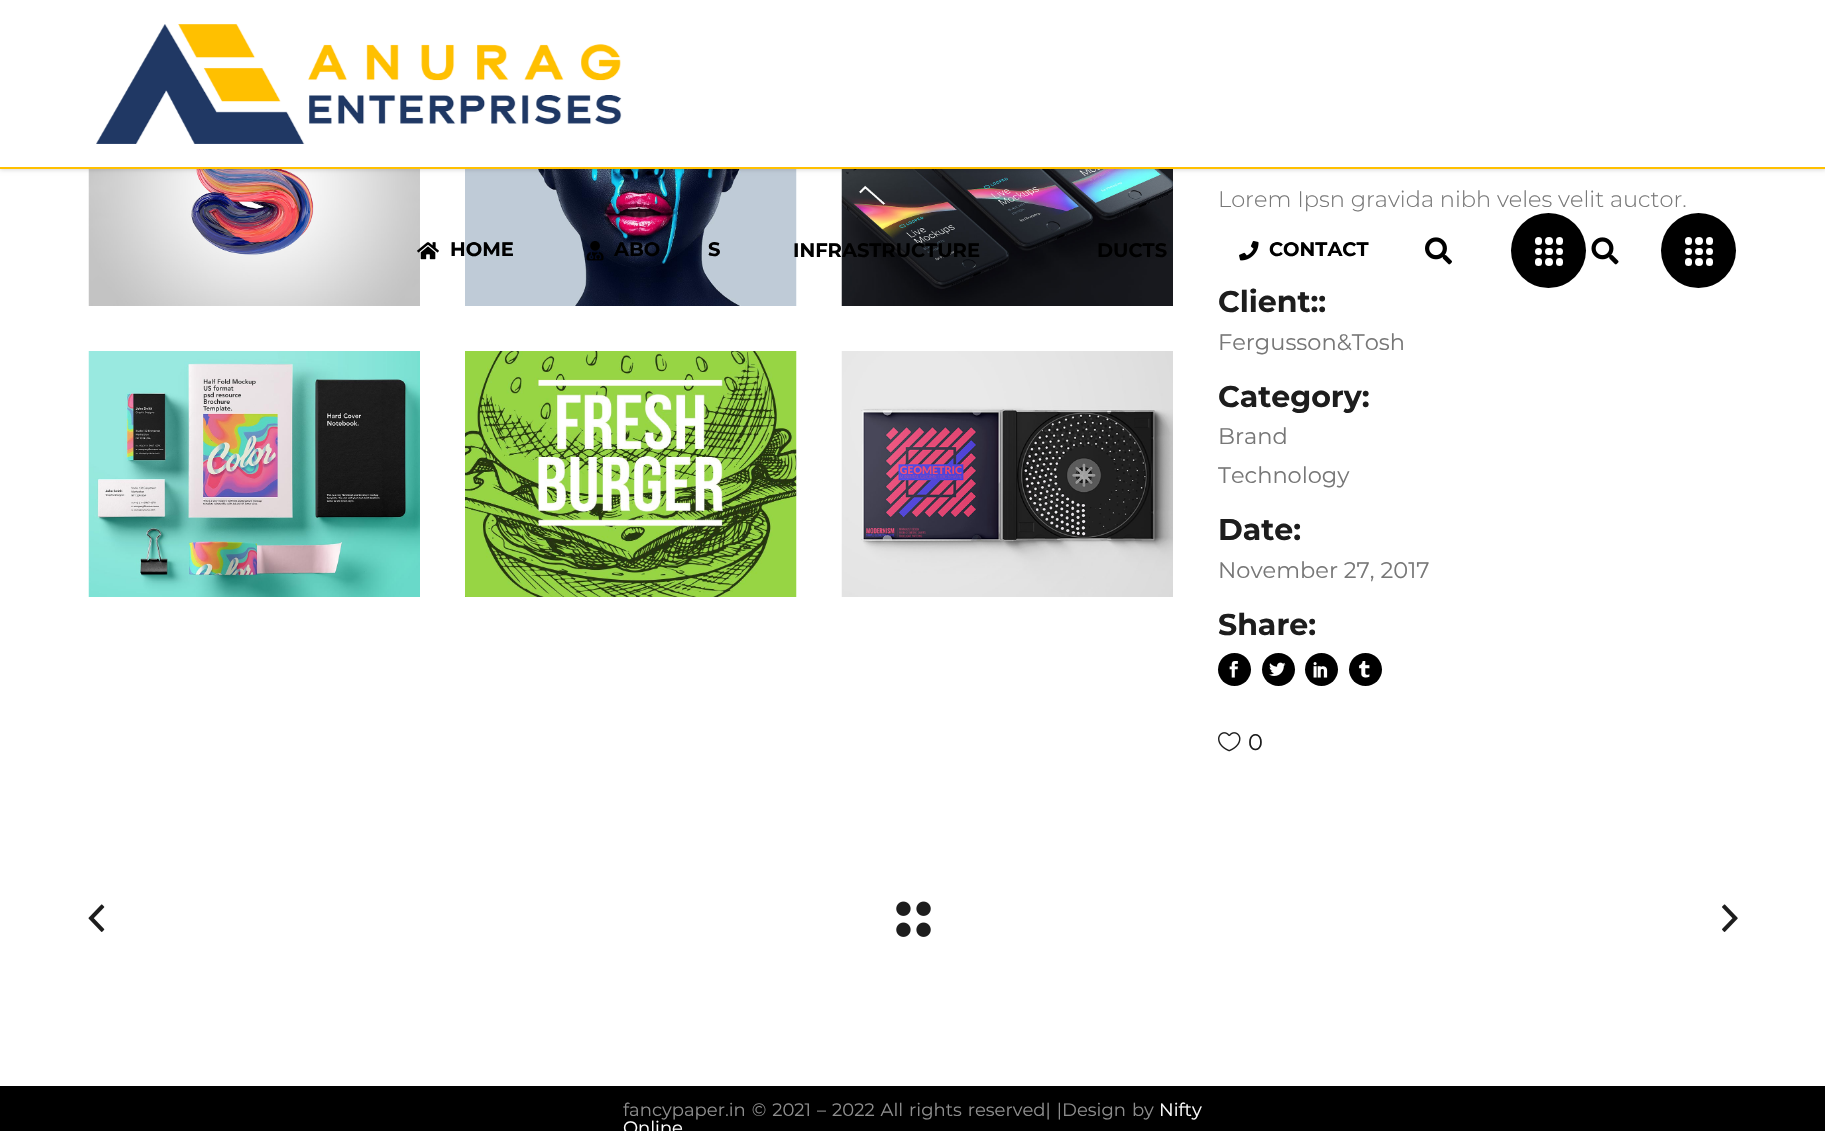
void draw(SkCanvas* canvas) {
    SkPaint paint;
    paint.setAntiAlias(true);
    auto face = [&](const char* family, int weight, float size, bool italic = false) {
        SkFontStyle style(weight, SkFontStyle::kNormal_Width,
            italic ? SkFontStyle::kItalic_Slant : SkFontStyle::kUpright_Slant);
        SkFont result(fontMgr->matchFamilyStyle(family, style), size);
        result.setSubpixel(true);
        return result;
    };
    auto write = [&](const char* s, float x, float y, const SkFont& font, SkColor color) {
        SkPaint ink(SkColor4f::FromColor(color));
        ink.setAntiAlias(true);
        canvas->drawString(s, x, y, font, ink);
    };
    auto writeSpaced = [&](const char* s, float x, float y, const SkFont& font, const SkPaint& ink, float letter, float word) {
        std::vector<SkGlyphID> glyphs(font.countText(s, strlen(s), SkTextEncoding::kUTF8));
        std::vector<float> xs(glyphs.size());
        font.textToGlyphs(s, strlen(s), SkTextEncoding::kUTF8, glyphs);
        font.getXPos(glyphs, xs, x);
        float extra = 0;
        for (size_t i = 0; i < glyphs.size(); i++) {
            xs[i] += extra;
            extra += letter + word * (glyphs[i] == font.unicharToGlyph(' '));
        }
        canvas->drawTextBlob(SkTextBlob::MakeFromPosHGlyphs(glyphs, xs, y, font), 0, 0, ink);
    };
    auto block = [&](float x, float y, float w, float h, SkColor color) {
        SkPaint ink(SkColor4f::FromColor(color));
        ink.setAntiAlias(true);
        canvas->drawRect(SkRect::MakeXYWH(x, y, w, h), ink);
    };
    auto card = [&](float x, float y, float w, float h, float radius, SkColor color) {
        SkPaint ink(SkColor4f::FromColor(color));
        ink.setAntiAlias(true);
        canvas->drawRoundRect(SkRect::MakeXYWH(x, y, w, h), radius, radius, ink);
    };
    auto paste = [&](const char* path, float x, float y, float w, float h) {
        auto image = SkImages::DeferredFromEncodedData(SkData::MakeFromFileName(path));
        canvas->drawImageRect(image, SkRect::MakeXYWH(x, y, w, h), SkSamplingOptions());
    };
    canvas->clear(SK_ColorWHITE);
    paste("pic7.png", 88, 169, 332, 137);
    paste("pic8.png", 465, 169, 332, 137);
    paste("pic9.png", 841, 169, 332, 137);
    paint.setColor(SkColorSetARGB(38, 0, 0, 0));
    paint.setMaskFilter(SkMaskFilter::MakeBlur(kNormal_SkBlurStyle, 2));
    canvas->drawRect(SkRect::MakeXYWH(0, 2, 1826, 168), paint);
    paint.setMaskFilter(nullptr);
    block(0, 0, 1825, 167, SK_ColorWHITE);
    block(0, 167, 1825, 2, SkColorSetRGB(255, 192, 0));
    paste("pic1.png", 96, 24, 526, 120);
    paste("pic2.png", 417, 242, 22, 18);
    auto kFont1 = face("Montserrat", 700, 19.5f);
    write("HOME", 450, 256, kFont1, SK_ColorBLACK);
    paste("pic3.png", 586, 241, 18, 20);
    write("ABO", 614, 256, kFont1, SK_ColorBLACK);
    write("S", 708, 256, kFont1, SK_ColorBLACK);
    write("INFRASTRUCTURE", 793, 257, kFont1, SK_ColorBLACK);
    write("DUCTS", 1097, 257, kFont1, SK_ColorBLACK);
    paste("pic4.png", 1239, 241, 20, 20);
    write("CONTACT", 1269, 256, kFont1, SK_ColorBLACK);
    paste("pic5.png", 1425, 237, 27, 28);
    paint.setColor(SK_ColorBLACK);
    canvas->drawCircle(1548.5f, 250.5f, 37.5f, paint);
    card(1535, 237, 7, 8, 3.5f, SK_ColorWHITE);
    paint.setColor(SK_ColorWHITE);
    canvas->drawCircle(1549, 241, 4, paint);
    card(1556, 237, 7, 8, 3.5f, SK_ColorWHITE);
    canvas->drawCircle(1538.5f, 251.5f, 3.5f, paint);
    card(1545, 248, 8, 7, 3.5f, SK_ColorWHITE);
    canvas->drawCircle(1559.5f, 251.5f, 3.5f, paint);
    card(1535, 258, 7, 8, 3.5f, SK_ColorWHITE);
    canvas->drawCircle(1549, 262, 4, paint);
    card(1556, 258, 7, 8, 3.5f, SK_ColorWHITE);
    paste("pic6.png", 1591, 237, 28, 28);
    paint.setColor(SK_ColorBLACK);
    canvas->drawCircle(1698.5f, 250.5f, 37.5f, paint);
    card(1685, 237, 7, 8, 3.5f, SK_ColorWHITE);
    paint.setColor(SK_ColorWHITE);
    canvas->drawCircle(1699, 241, 4, paint);
    card(1706, 237, 7, 8, 3.5f, SK_ColorWHITE);
    canvas->drawCircle(1688.5f, 251.5f, 3.5f, paint);
    card(1695, 248, 8, 7, 3.5f, SK_ColorWHITE);
    canvas->drawCircle(1709.5f, 251.5f, 3.5f, paint);
    card(1685, 258, 7, 8, 3.5f, SK_ColorWHITE);
    canvas->drawCircle(1699, 262, 4, paint);
    card(1706, 258, 7, 8, 3.5f, SK_ColorWHITE);
    paste("pic10.png", 88, 351, 332, 246);
    paste("pic11.png", 465, 351, 332, 246);
    paste("pic12.png", 841, 351, 332, 246);
    auto kFont2 = face("Montserrat", 300, 22.5f);
    write("Lorem Ipsn gravida nibh veles velit auctor.", 1218, 207, kFont2, SkColorSetRGB(119, 119, 119));
    auto kFont3 = face("Montserrat", 700, 30);
    write("Client::", 1218, 312, kFont3, SkColorSetRGB(29, 29, 29));
    auto kFont4 = face("Montserrat", 400, 22.5f);
    write("Fergusson&Tosh", 1218, 350, kFont4, SkColorSetRGB(119, 119, 119));
    write("Category:", 1218, 407, kFont3, SkColorSetRGB(29, 29, 29));
    write("Brand", 1218, 444, kFont4, SkColorSetRGB(119, 119, 119));
    write("Technology", 1218, 483, kFont4, SkColorSetRGB(119, 119, 119));
    write("Date:", 1218, 540, kFont3, SkColorSetRGB(29, 29, 29));
    write("November 27, 2017", 1218, 578, kFont4, SkColorSetRGB(119, 119, 119));
    write("Share:", 1218, 635, kFont3, SkColorSetRGB(29, 29, 29));
    paint.setColor(SK_ColorBLACK);
    canvas->drawCircle(1234.5f, 669.5f, 16.5f, paint);
    paste("pic13.png", 1229, 661, 9, 17);
    canvas->drawCircle(1278.5f, 669.5f, 16.5f, paint);
    paste("pic14.png", 1269, 662, 17, 14);
    canvas->drawCircle(1321.5f, 669.5f, 16.5f, paint);
    paste("pic15.png", 1313, 662, 15, 16);
    canvas->drawCircle(1365.5f, 669.5f, 16.5f, paint);
    paste("pic16.png", 1359, 661, 11, 17);
    paste("pic17.png", 1218, 732, 23, 20);
    write("0", 1248, 750, kFont4, SkColorSetRGB(29, 29, 29));
    paste("pic18.png", 88, 904, 17, 28);
    paste("pic19.png", 896, 901, 35, 15);
    paste("pic19.png", 896, 922, 35, 15);
    paste("pic20.png", 1722, 904, 16, 28);
    block(0, 1086, 1825, 45, SK_ColorBLACK);
    auto kFont5 = face("Montserrat", 400, 18);
    paint.setColor(SkColorSetRGB(141, 141, 141));
    writeSpaced("fancypaper.in © 2021 – 2022 All rights reserved| |Design by", 623, 1116, kFont5, paint, 0, 1.25f);
    write("Nifty", 1159, 1116, kFont5, SK_ColorWHITE);
    write("Online", 623, 1134, kFont5, SK_ColorWHITE);
}
